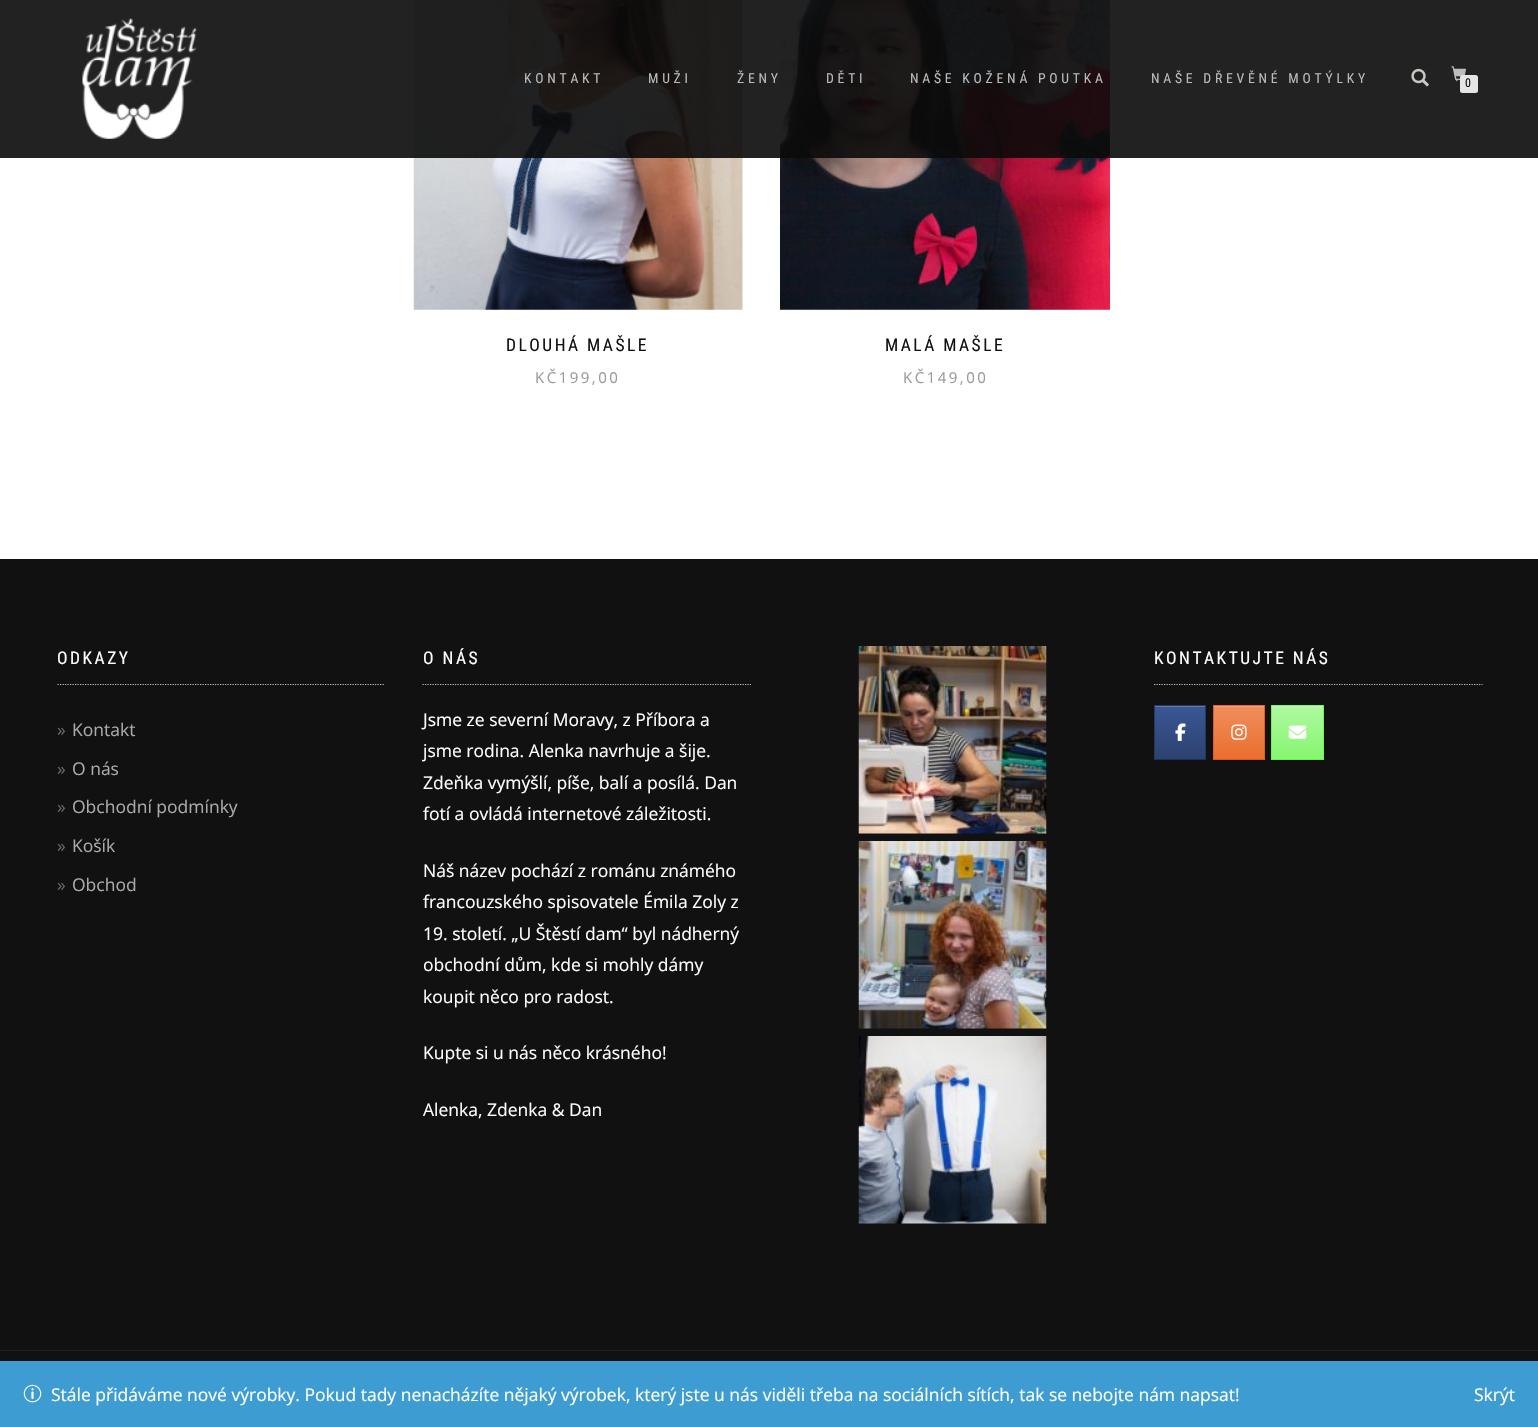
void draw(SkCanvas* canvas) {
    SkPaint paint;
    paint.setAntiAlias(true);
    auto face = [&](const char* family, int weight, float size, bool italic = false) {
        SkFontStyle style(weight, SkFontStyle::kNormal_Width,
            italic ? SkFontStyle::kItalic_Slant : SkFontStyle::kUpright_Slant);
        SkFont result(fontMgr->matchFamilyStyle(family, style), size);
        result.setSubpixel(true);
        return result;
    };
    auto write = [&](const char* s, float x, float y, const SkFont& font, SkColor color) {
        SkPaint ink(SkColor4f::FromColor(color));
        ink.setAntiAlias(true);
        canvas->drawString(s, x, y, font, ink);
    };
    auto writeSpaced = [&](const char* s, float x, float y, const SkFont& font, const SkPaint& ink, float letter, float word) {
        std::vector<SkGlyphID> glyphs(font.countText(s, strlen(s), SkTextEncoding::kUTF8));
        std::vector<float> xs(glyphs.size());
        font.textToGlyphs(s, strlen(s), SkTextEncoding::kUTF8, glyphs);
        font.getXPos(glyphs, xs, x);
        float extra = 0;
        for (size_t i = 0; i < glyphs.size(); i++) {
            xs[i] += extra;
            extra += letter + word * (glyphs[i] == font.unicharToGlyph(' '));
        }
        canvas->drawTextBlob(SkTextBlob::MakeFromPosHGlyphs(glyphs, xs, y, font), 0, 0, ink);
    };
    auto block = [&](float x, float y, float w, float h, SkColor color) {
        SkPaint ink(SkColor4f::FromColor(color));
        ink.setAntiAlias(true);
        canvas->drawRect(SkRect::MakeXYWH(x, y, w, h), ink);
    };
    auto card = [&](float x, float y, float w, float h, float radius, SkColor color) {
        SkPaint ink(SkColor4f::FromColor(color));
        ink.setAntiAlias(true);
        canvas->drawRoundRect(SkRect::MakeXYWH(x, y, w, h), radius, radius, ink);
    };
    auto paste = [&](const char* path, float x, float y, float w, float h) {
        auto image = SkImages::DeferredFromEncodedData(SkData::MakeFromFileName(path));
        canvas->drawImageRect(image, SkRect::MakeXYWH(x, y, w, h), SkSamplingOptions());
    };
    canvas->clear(SK_ColorWHITE);
    paste("pic4.png", 413, 0, 330, 310);
    paste("pic5.png", 780, 0, 330, 310);
    block(0, 0, 1538, 158, SkColorSetARGB(230, 10, 10, 10));
    paste("pic1.png", 82, 18, 115, 121);
    auto kFont1 = face("Roboto Condensed", 400, 13.75f);
    paint.setColor(SkColorSetRGB(187, 186, 186));
    writeSpaced("KONTAKT", 524, 83, kFont1, paint, 3.75f, 0);
    writeSpaced("MUŽI", 648, 83, kFont1, paint, 3.75f, 0);
    writeSpaced("ŽENY", 737, 83, kFont1, paint, 3.75f, 0);
    writeSpaced("DĚTI", 826, 83, kFont1, paint, 3.75f, 0);
    writeSpaced("NAŠE KOŽENÁ POUTKA", 910, 83, kFont1, paint, 3.75f, 0);
    writeSpaced("NAŠE DŘEVĚNÉ MOTÝLKY", 1151, 83, kFont1, paint, 3.75f, 0);
    paste("pic2.png", 1411, 68, 18, 19);
    paste("pic3.png", 1451, 66, 15, 16);
    card(1460, 75, 18, 18, 2.5f, SkColorSetRGB(229, 229, 229));
    auto kFont2 = face("Roboto Condensed", 400, 12);
    write("0", 1465, 87, kFont2, SkColorSetRGB(17, 17, 17));
    auto kFont3 = face("Roboto Condensed", 400, 17.5f);
    paint.setColor(SkColorSetRGB(17, 17, 17));
    writeSpaced("DLOUHÁ MAŠLE", 506, 351, kFont3, paint, 2.5f, 0);
    auto kFont4 = face("Open Sans", 400, 15);
    paint.setColor(SkColorSetRGB(153, 153, 153));
    writeSpaced("KČ199,00", 535, 383, kFont4, paint, 2.5f, 0);
    paint.setColor(SkColorSetRGB(17, 17, 17));
    writeSpaced("MALÁ MAŠLE", 885, 351, kFont3, paint, 2.5f, 0);
    paint.setColor(SkColorSetRGB(153, 153, 153));
    writeSpaced("KČ149,00", 903, 383, kFont4, paint, 2.5f, 0);
    block(0, 559, 1538, 791, SkColorSetRGB(17, 17, 17));
    paint.setStyle(SkPaint::kStroke_Style);
    paint.setStrokeWidth(1.2f);
    paint.setColor(SkColorSetRGB(194, 194, 194));
    paint.setPathEffect(SkDashPathEffect::Make({{1.25f, 1.25f}}, 0));
    canvas->drawPath(SkPathBuilder().moveTo(57.5f, 684.5f).lineTo(385, 684.5f).detach(), paint);
    paint.setPathEffect(nullptr);
    paint.setStyle(SkPaint::kFill_Style);
    paint.setColor(SK_ColorWHITE);
    writeSpaced("ODKAZY", 57, 664, kFont3, paint, 2.5f, 0);
    auto kFont5 = face("Open Sans", 400, 17.5f);
    write("»", 57, 736, kFont5, SkColorSetRGB(102, 102, 102));
    write("Kontakt", 72, 736, kFont5, SkColorSetRGB(170, 170, 170));
    write("»", 57, 775, kFont5, SkColorSetRGB(102, 102, 102));
    write("O nás", 72, 775, kFont5, SkColorSetRGB(170, 170, 170));
    write("»", 57, 813, kFont5, SkColorSetRGB(102, 102, 102));
    write("Obchodní podmínky", 72, 813, kFont5, SkColorSetRGB(170, 170, 170));
    write("»", 57, 852, kFont5, SkColorSetRGB(102, 102, 102));
    write("Košík", 72, 852, kFont5, SkColorSetRGB(170, 170, 170));
    write("»", 57, 891, kFont5, SkColorSetRGB(102, 102, 102));
    write("Obchod", 72, 891, kFont5, SkColorSetRGB(170, 170, 170));
    paint.setStyle(SkPaint::kStroke_Style);
    paint.setColor(SkColorSetRGB(194, 194, 194));
    paint.setPathEffect(SkDashPathEffect::Make({{1.25f, 1.25f}}, 0));
    canvas->drawPath(SkPathBuilder().moveTo(422.5f, 684.5f).lineTo(751, 684.5f).detach(), paint);
    paint.setPathEffect(nullptr);
    paint.setStyle(SkPaint::kFill_Style);
    paint.setColor(SK_ColorWHITE);
    writeSpaced("O NÁS", 423, 664, kFont3, paint, 2.5f, 0);
    write("Jsme ze severní Moravy, z Příbora a", 423, 726, kFont5, SK_ColorWHITE);
    write("jsme rodina. Alenka navrhuje a šije.", 423, 757, kFont5, SK_ColorWHITE);
    write("Zdeňka vymýšlí, píše, balí a posílá. Dan", 423, 789, kFont5, SK_ColorWHITE);
    write("fotí a ovládá internetové záležitosti.", 423, 820, kFont5, SK_ColorWHITE);
    write("Náš název pochází z románu známého", 423, 877, kFont5, SK_ColorWHITE);
    write("francouzského spisovatele Émila Zoly z", 423, 908, kFont5, SK_ColorWHITE);
    write("19. století. „U Štěstí dam“ byl nádherný", 423, 940, kFont5, SK_ColorWHITE);
    write("obchodní dům, kde si mohly dámy", 423, 971, kFont5, SK_ColorWHITE);
    write("koupit něco pro radost.", 423, 1003, kFont5, SK_ColorWHITE);
    write("Kupte si u nás něco krásného!", 423, 1059, kFont5, SK_ColorWHITE);
    write("Alenka, Zdenka & Dan", 423, 1116, kFont5, SK_ColorWHITE);
    paste("pic6.png", 858, 646, 189, 188);
    paste("pic7.png", 858, 841, 189, 188);
    paste("pic8.png", 858, 1036, 189, 188);
    paint.setStyle(SkPaint::kStroke_Style);
    paint.setColor(SkColorSetRGB(194, 194, 194));
    paint.setPathEffect(SkDashPathEffect::Make({{1.25f, 1.25f}}, 0));
    canvas->drawPath(SkPathBuilder().moveTo(1154, 684.5f).lineTo(1482.5f, 684.5f).detach(), paint);
    paint.setPathEffect(nullptr);
    paint.setStyle(SkPaint::kFill_Style);
    paint.setColor(SK_ColorWHITE);
    writeSpaced("KONTAKTUJTE NÁS", 1154, 664, kFont3, paint, 2.5f, 0);
    {
        const SkColor colors[] = {SkColorSetRGB(44, 66, 112), SkColorSetRGB(58, 87, 149)};
        const float stops[] = {0, 1};
        const SkPoint ends[] = {{1155, 759}, {1155, 706}};
        paint.setShader(SkGradientShader::MakeLinear(ends, colors, stops, 2, SkTileMode::kClamp));
        paint.setAlpha(255);
    }
    canvas->drawRect(SkRect::MakeXYWH(1155, 707, 50, 52), paint);
    block(1155, 706, 50, 1, SkColorSetRGB(97, 121, 170));
    block(1154, 705, 52, 1, SkColorSetRGB(39, 59, 101));
    block(1205, 705, 1, 55, SkColorSetRGB(37, 55, 94));
    block(1154, 759, 52, 1, SkColorSetRGB(32, 48, 83));
    block(1154, 705, 1, 55, SkColorSetRGB(37, 55, 94));
    paste("pic9.png", 1175, 723, 11, 18);
    {
        const SkColor colors[] = {SkColorSetRGB(234, 110, 47), SkColorSetRGB(239, 142, 93)};
        const float stops[] = {0, 1};
        const SkPoint ends[] = {{1214, 759}, {1214, 706}};
        paint.setShader(SkGradientShader::MakeLinear(ends, colors, stops, 2, SkTileMode::kClamp));
        paint.setAlpha(255);
    }
    canvas->drawRect(SkRect::MakeXYWH(1214, 707, 50, 52), paint);
    block(1214, 706, 50, 1, SkColorSetRGB(242, 165, 125));
    block(1213, 705, 52, 1, SkColorSetRGB(233, 100, 33));
    block(1264, 705, 1, 55, SkColorSetRGB(232, 93, 23));
    block(1213, 759, 52, 1, SkColorSetRGB(219, 88, 22));
    block(1213, 705, 1, 55, SkColorSetRGB(232, 93, 23));
    paste("pic10.png", 1231, 724, 16, 16);
    {
        const SkColor colors[] = {SkColorSetRGB(134, 246, 111), SkColorSetRGB(174, 249, 159)};
        const float stops[] = {0, 1};
        const SkPoint ends[] = {{1273, 759}, {1273, 706}};
        paint.setShader(SkGradientShader::MakeLinear(ends, colors, stops, 2, SkTileMode::kClamp));
        paint.setAlpha(255);
    }
    canvas->drawRect(SkRect::MakeXYWH(1272, 706, 51, 53), paint);
    block(1273, 706, 50, 1, SkColorSetRGB(190, 250, 178));
    block(1271, 705, 53, 1, SkColorSetRGB(121, 245, 97));
    block(1323, 705, 1, 55, SkColorSetRGB(113, 245, 87));
    block(1271, 759, 53, 1, SkColorSetRGB(101, 244, 73));
    block(1271, 705, 1, 55, SkColorSetRGB(113, 245, 87));
    paste("pic11.png", 1288, 725, 19, 14);
    block(0, 1351, 1538, 10, SkColorSetRGB(17, 17, 17));
    block(0, 1350, 1538, 1, SkColorSetRGB(32, 32, 32));
    block(0, 1361, 1538, 66, SkColorSetRGB(61, 156, 210));
    paste("pic12.png", 23, 1384, 19, 19);
    write("Stále přidáváme nové výrobky. Pokud tady nenacházíte nějaký výrobek, který jste u nás viděli třeba na sociálních sítích, tak se nebojte nám napsat!", 51, 1401, kFont5, SK_ColorWHITE);
    write("Skrýt", 1474, 1401, kFont5, SK_ColorWHITE);
}
